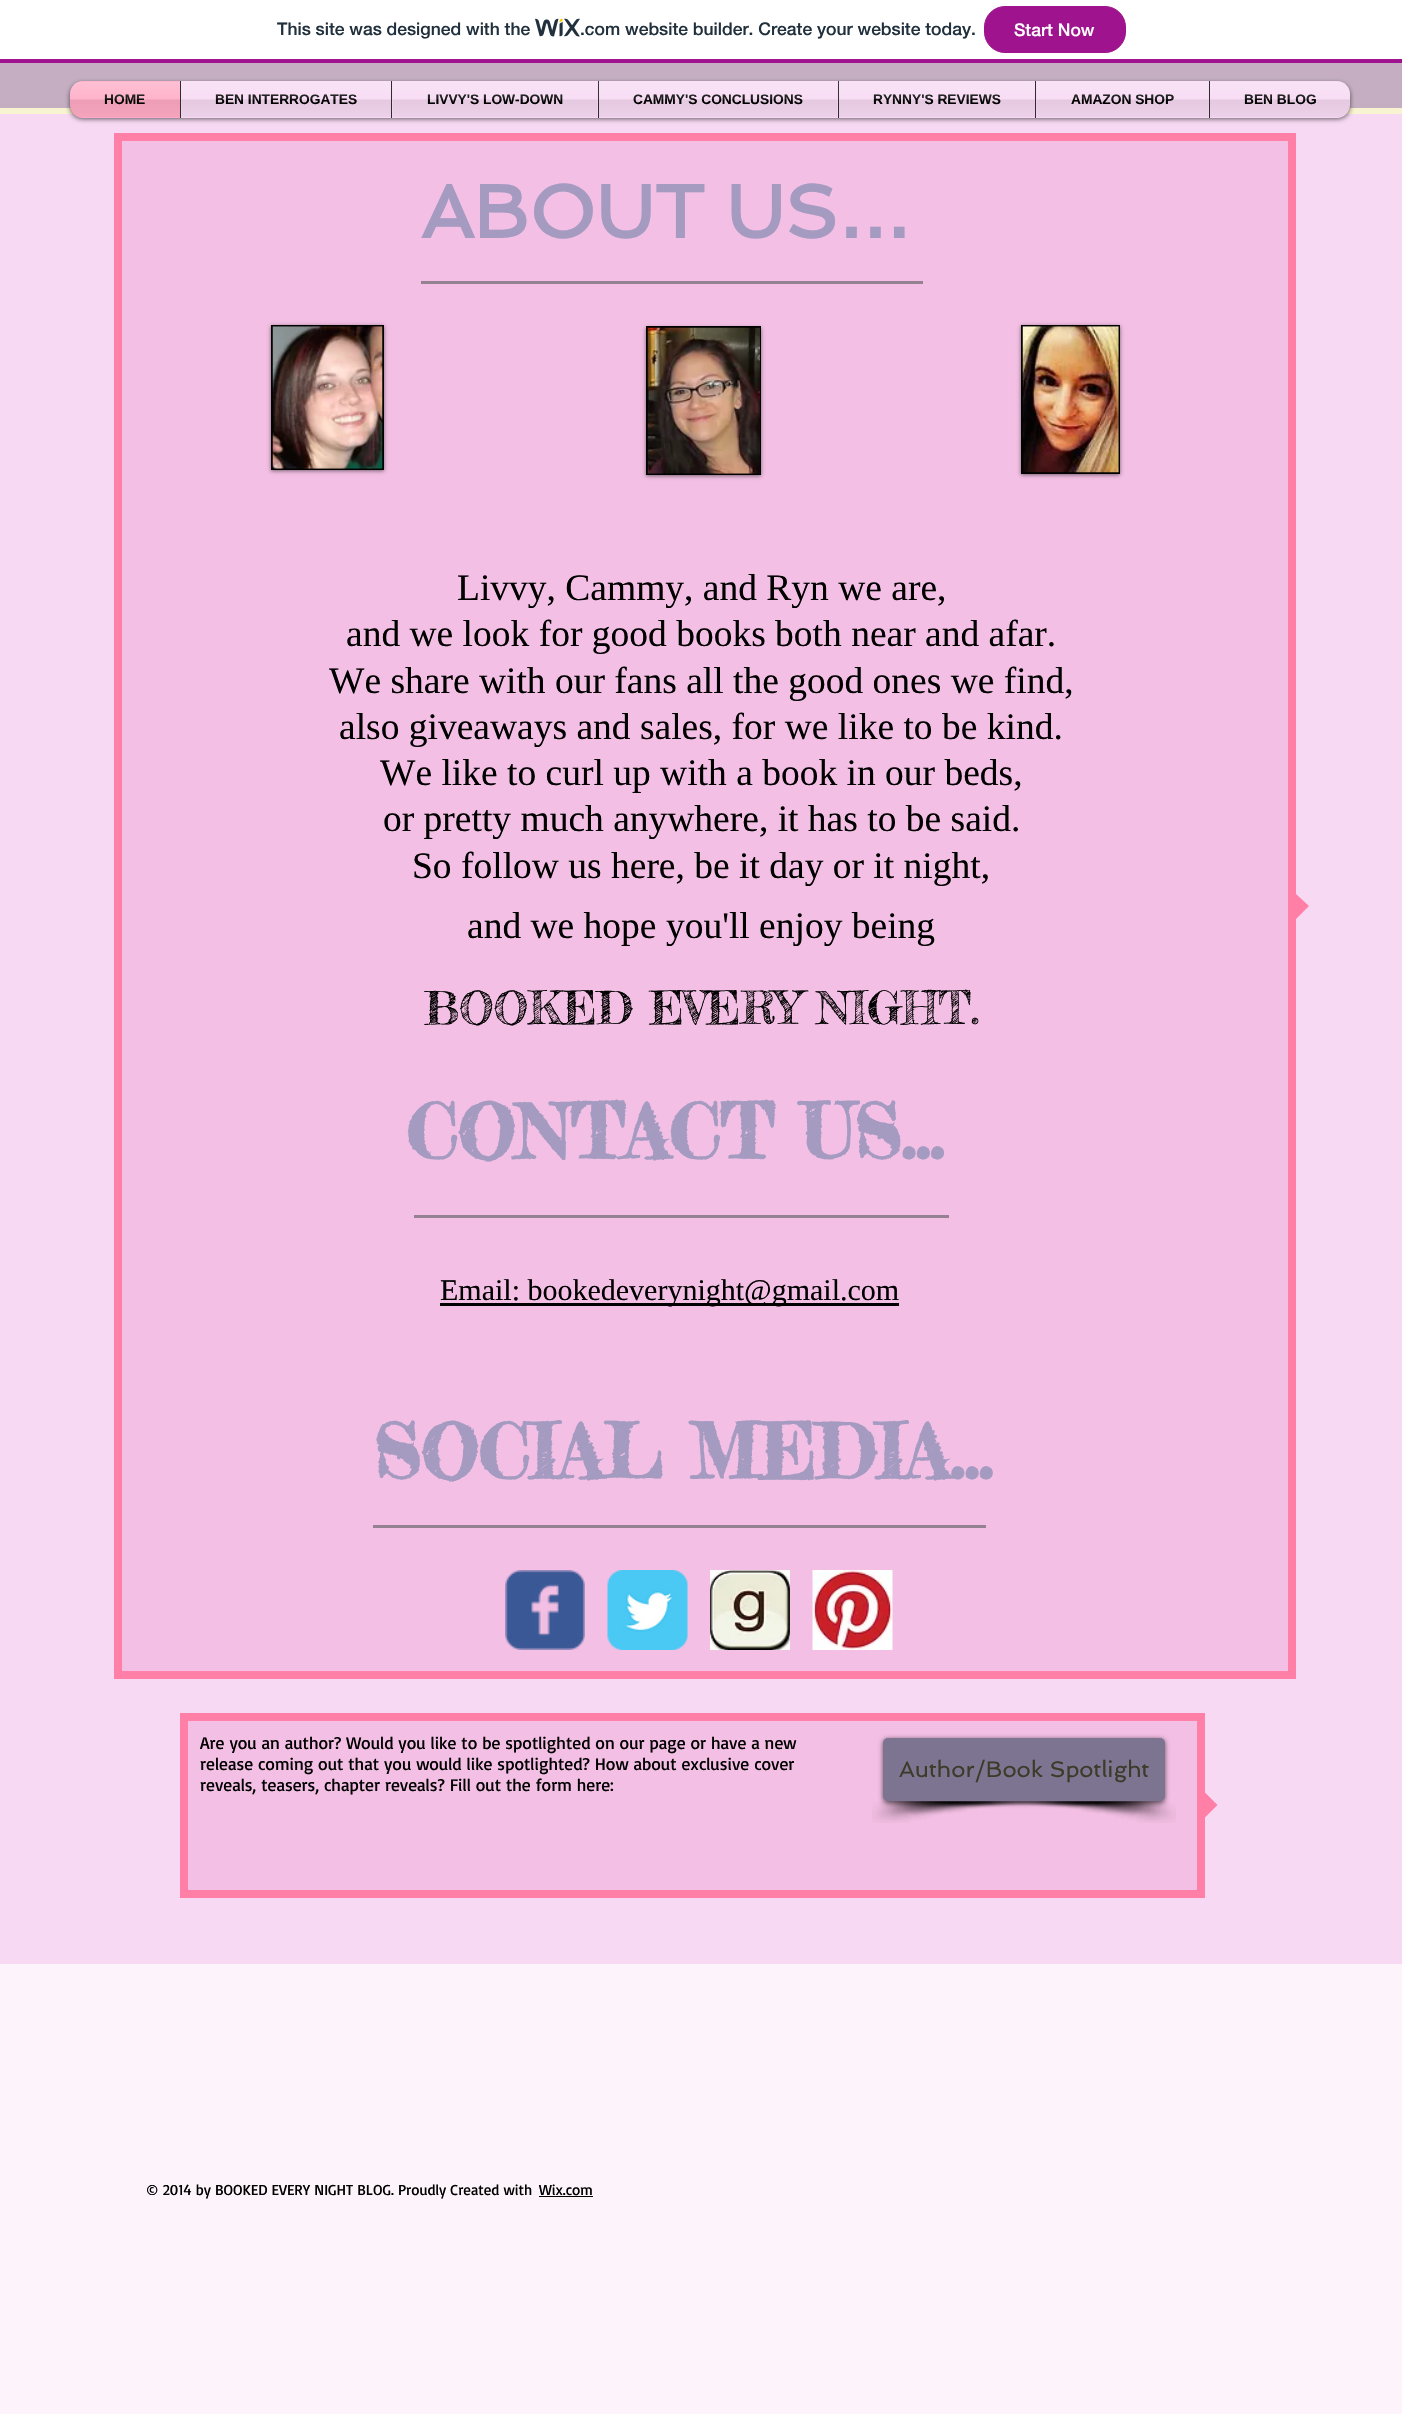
void draw(SkCanvas* canvas) {
    SkPaint paint;
    paint.setAntiAlias(true);
    auto face = [&](const char* family, int weight, float size, bool italic = false) {
        SkFontStyle style(weight, SkFontStyle::kNormal_Width,
            italic ? SkFontStyle::kItalic_Slant : SkFontStyle::kUpright_Slant);
        SkFont result(fontMgr->matchFamilyStyle(family, style), size);
        result.setSubpixel(true);
        return result;
    };
    auto write = [&](const char* s, float x, float y, const SkFont& font, SkColor color) {
        SkPaint ink(SkColor4f::FromColor(color));
        ink.setAntiAlias(true);
        canvas->drawString(s, x, y, font, ink);
    };
    auto block = [&](float x, float y, float w, float h, SkColor color) {
        SkPaint ink(SkColor4f::FromColor(color));
        ink.setAntiAlias(true);
        canvas->drawRect(SkRect::MakeXYWH(x, y, w, h), ink);
    };
    auto card = [&](float x, float y, float w, float h, float radius, SkColor color) {
        SkPaint ink(SkColor4f::FromColor(color));
        ink.setAntiAlias(true);
        canvas->drawRoundRect(SkRect::MakeXYWH(x, y, w, h), radius, radius, ink);
    };
    auto paste = [&](const char* path, float x, float y, float w, float h) {
        auto image = SkImages::DeferredFromEncodedData(SkData::MakeFromFileName(path));
        canvas->drawImageRect(image, SkRect::MakeXYWH(x, y, w, h), SkSamplingOptions());
    };
    canvas->clear(SkColorSetRGB(247, 217, 243));
    block(0, 0, 1402, 59, SK_ColorWHITE);
    block(0, 59, 1402, 4, SkColorSetRGB(160, 19, 142));
    auto kFont1 = face("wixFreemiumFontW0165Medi", 500, 17.5f);
    write("This site was designed with the", 277, 35, kFont1, SkColorSetRGB(32, 48, 60));
    paste("pic1.png", 535, 18, 45, 19);
    write(".com website builder. Create your website today.", 580, 35, kFont1, SkColorSetRGB(32, 48, 60));
    paint.setColor(SkColorSetRGB(160, 19, 142));
    canvas->drawRoundRect(SkRect::MakeXYWH(984.5f, 6.5f, 141, 46), 20.5f, 20.5f, paint);
    paint.setStyle(SkPaint::kStroke_Style);
    paint.setStrokeWidth(1);
    canvas->drawRoundRect(SkRect::MakeXYWH(984.5f, 6.5f, 141, 46), 20.5f, 20.5f, paint);
    write("Start Now", 1014, 36, kFont1, SK_ColorWHITE);
    block(0, 63, 1402, 45, SkColorSetRGB(197, 174, 194));
    block(0, 108, 1402, 6, SkColorSetRGB(248, 243, 208));
    paint.setStyle(SkPaint::kFill_Style);
    paint.setColor(SkColorSetARGB(153, 0, 0, 0));
    paint.setMaskFilter(SkMaskFilter::MakeBlur(kNormal_SkBlurStyle, 2.5f));
    canvas->drawRoundRect(SkRect::MakeXYWH(70, 83, 1280, 36), 13, 13, paint);
    paint.setMaskFilter(nullptr);
    paste("pic2.png", 70, 81, 1280, 35);
    paint.setColor(SkColorSetRGB(255, 170, 196));
    canvas->drawPath(SkPathBuilder().moveTo(83, 81).lineTo(180, 81).lineTo(180, 118).lineTo(83, 118).cubicTo(76, 118, 70, 112, 70, 105).lineTo(70, 94).cubicTo(70, 87, 76, 81, 83, 81).close().detach(), paint);
    auto kFont2 = face("Liberation Sans", 700, 13.75f);
    write("HOME", 104, 104, kFont2, SK_ColorBLACK);
    paste("pic3.png", 70, 81, 110, 36);
    block(181, 81, 210, 37, SkColorSetRGB(247, 217, 243));
    block(180, 81, 1, 37, SkColorSetRGB(49, 43, 48));
    write("BEN INTERROGATES", 215, 104, kFont2, SK_ColorBLACK);
    paste("pic4.png", 181, 81, 210, 36);
    block(392, 81, 206, 37, SkColorSetRGB(247, 217, 243));
    block(391, 81, 1, 37, SkColorSetRGB(49, 43, 48));
    write("LIVVY'S LOW-DOWN", 427, 104, kFont2, SK_ColorBLACK);
    paste("pic5.png", 392, 81, 206, 36);
    block(599, 81, 239, 37, SkColorSetRGB(247, 217, 243));
    block(598, 81, 1, 37, SkColorSetRGB(49, 43, 48));
    write("CAMMY'S CONCLUSIONS", 633, 104, kFont2, SK_ColorBLACK);
    paste("pic6.png", 598, 81, 240, 36);
    block(839, 81, 196, 37, SkColorSetRGB(247, 217, 243));
    block(838, 81, 1, 37, SkColorSetRGB(49, 43, 48));
    write("RYNNY'S REVIEWS", 873, 104, kFont2, SK_ColorBLACK);
    paste("pic7.png", 838, 81, 197, 36);
    block(1036, 81, 173, 37, SkColorSetRGB(247, 217, 243));
    block(1035, 81, 1, 37, SkColorSetRGB(49, 43, 48));
    write("AMAZON SHOP", 1071, 104, kFont2, SK_ColorBLACK);
    paste("pic8.png", 1036, 81, 173, 36);
    paint.setColor(SkColorSetRGB(247, 217, 243));
    canvas->drawPath(SkPathBuilder().moveTo(1209, 81).lineTo(1337, 81).cubicTo(1344, 81, 1350, 87, 1350, 94).lineTo(1350, 105).cubicTo(1350, 112, 1344, 118, 1337, 118).lineTo(1209, 118).close().detach(), paint);
    block(1209, 81, 1, 37, SkColorSetRGB(49, 43, 48));
    write("BEN BLOG", 1244, 104, kFont2, SK_ColorBLACK);
    paste("pic9.png", 1210, 81, 140, 36);
    paint.setColor(SkColorSetRGB(243, 191, 228));
    canvas->drawRect(SkRect::MakeXYWH(118, 137, 1174, 1538), paint);
    paint.setStyle(SkPaint::kStroke_Style);
    paint.setStrokeWidth(8);
    paint.setColor(SkColorSetRGB(255, 127, 167));
    canvas->drawRect(SkRect::MakeXYWH(118, 137, 1174, 1538), paint);
    auto kFont3 = face("Spinnaker", 700, 75);
    write("ABOUT US", 421, 238, kFont3, SkColorSetRGB(165, 155, 193));
    auto kFont4 = face("Liberation Sans", 700, 75);
    write("…", 838, 238, kFont4, SkColorSetRGB(165, 155, 193));
    block(421, 281, 502, 3, SkColorSetRGB(148, 130, 146));
    paint.setStyle(SkPaint::kFill_Style);
    paint.setColor(SkColorSetARGB(128, 0, 0, 0));
    paint.setMaskFilter(SkMaskFilter::MakeBlur(kNormal_SkBlurStyle, 2));
    canvas->drawRect(SkRect::MakeXYWH(271, 326, 113, 145), paint);
    paint.setMaskFilter(nullptr);
    block(271, 325, 113, 145, SK_ColorBLACK);
    paste("pic10.png", 272, 326, 111, 143);
    paint.setMaskFilter(SkMaskFilter::MakeBlur(kNormal_SkBlurStyle, 2));
    canvas->drawRect(SkRect::MakeXYWH(646, 328, 115, 148), paint);
    paint.setMaskFilter(nullptr);
    block(646, 326, 115, 149, SK_ColorBLACK);
    paste("pic11.png", 647, 327, 113, 147);
    paint.setMaskFilter(SkMaskFilter::MakeBlur(kNormal_SkBlurStyle, 2));
    canvas->drawRect(SkRect::MakeXYWH(1021, 326, 99, 149), paint);
    paint.setMaskFilter(nullptr);
    block(1021, 325, 99, 149, SK_ColorBLACK);
    paste("pic12.png", 1022, 326, 97, 147);
    auto kFont5 = face("Liberation Serif", 400, 37.5f);
    write("Livvy, Cammy, and Ryn we are,", 457, 600, kFont5, SK_ColorBLACK);
    write("and we look for good books both near and afar.", 346, 646, kFont5, SK_ColorBLACK);
    write("We share with our fans all the good ones we find,", 329, 693, kFont5, SK_ColorBLACK);
    write("also giveaways and sales, for we like to be kind.", 339, 739, kFont5, SK_ColorBLACK);
    write("We like to curl up with a book in our beds,", 380, 785, kFont5, SK_ColorBLACK);
    write("or pretty much anywhere, it has to be said.", 383, 831, kFont5, SK_ColorBLACK);
    write("So follow us here, be it day or it night,", 412, 878, kFont5, SK_ColorBLACK);
    write("and we hope you'll enjoy being", 467, 938, kFont5, SK_ColorBLACK);
    auto kFont6 = face("Fredericka the Great", 400, 45);
    write("BOOKED EVERY NIGHT.", 424, 1024, kFont6, SK_ColorBLACK);
    auto kFont7 = face("Fredericka the Great", 700, 75);
    write("CONTACT US…", 406, 1159, kFont7, SkColorSetRGB(165, 155, 193));
    block(414, 1215, 535, 3, SkColorSetRGB(148, 130, 146));
    block(440, 1303, 459, 3, SK_ColorBLACK);
    auto kFont8 = face("Liberation Serif", 400, 30);
    write("Email: bookedeverynight@gmail.com", 440, 1300, kFont8, SK_ColorBLACK);
    write("SOCIAL MEDIA…", 373, 1479, kFont7, SkColorSetRGB(165, 155, 193));
    block(373, 1525, 613, 3, SkColorSetRGB(148, 130, 146));
    paste("pic13.png", 505, 1570, 80, 80);
    paste("pic14.png", 607, 1570, 81, 80);
    paste("pic15.png", 710, 1570, 80, 80);
    paste("pic16.png", 812, 1570, 81, 80);
    paint.setColor(SkColorSetRGB(255, 127, 167));
    canvas->drawPath(SkPathBuilder().moveTo(1296, 919).lineTo(1296, 894).lineTo(1309, 906).close().detach(), paint);
    paint.setColor(SkColorSetRGB(243, 191, 228));
    canvas->drawRect(SkRect::MakeXYWH(184, 1717, 1017, 177), paint);
    paint.setStyle(SkPaint::kStroke_Style);
    paint.setColor(SkColorSetRGB(255, 127, 167));
    canvas->drawRect(SkRect::MakeXYWH(184, 1717, 1017, 177), paint);
    auto kFont9 = face("Basic", 400, 17.5f);
    write("Are you an author? Would you like to be spotlighted on our page or have a new", 200, 1749, kFont9, SK_ColorBLACK);
    write("release coming out that you would like spotlighted? How about exclusive cover", 200, 1770, kFont9, SK_ColorBLACK);
    write("reveals, teasers, chapter reveals? Fill out the form here:", 200, 1791, kFont9, SK_ColorBLACK);
    paste("pic17.png", 872, 1801, 184, 22);
    paste("pic18.png", 1000, 1801, 176, 22);
    paint.setStyle(SkPaint::kFill_Style);
    paint.setColor(SkColorSetARGB(153, 0, 0, 0));
    paint.setMaskFilter(SkMaskFilter::MakeBlur(kNormal_SkBlurStyle, 2.5f));
    canvas->drawRoundRect(SkRect::MakeXYWH(883, 1739, 282, 64), 5, 5, paint);
    paint.setMaskFilter(nullptr);
    card(883, 1738, 282, 63, 5, SkColorSetRGB(124, 116, 145));
    auto kFont10 = face("Spinnaker", 400, 22.5f);
    write("Author/Book Spotlight", 899, 1777, kFont10, SkColorSetRGB(60, 58, 41));
    paint.setColor(SkColorSetRGB(255, 127, 167));
    canvas->drawPath(SkPathBuilder().moveTo(1205, 1817.5f).lineTo(1205, 1792.5f).lineTo(1217.5f, 1805).close().detach(), paint);
    block(0, 1964, 1402, 450, SkColorSetRGB(253, 243, 251));
    auto kFont11 = face("Basic", 400, 15);
    write("© 2014 by BOOKED EVERY NIGHT BLOG. Proudly Created with", 146, 2195, kFont11, SK_ColorBLACK);
    write("Wix.com", 539, 2195, kFont11, SK_ColorBLACK);
    block(539, 2196, 54, 1, SK_ColorBLACK);
}
